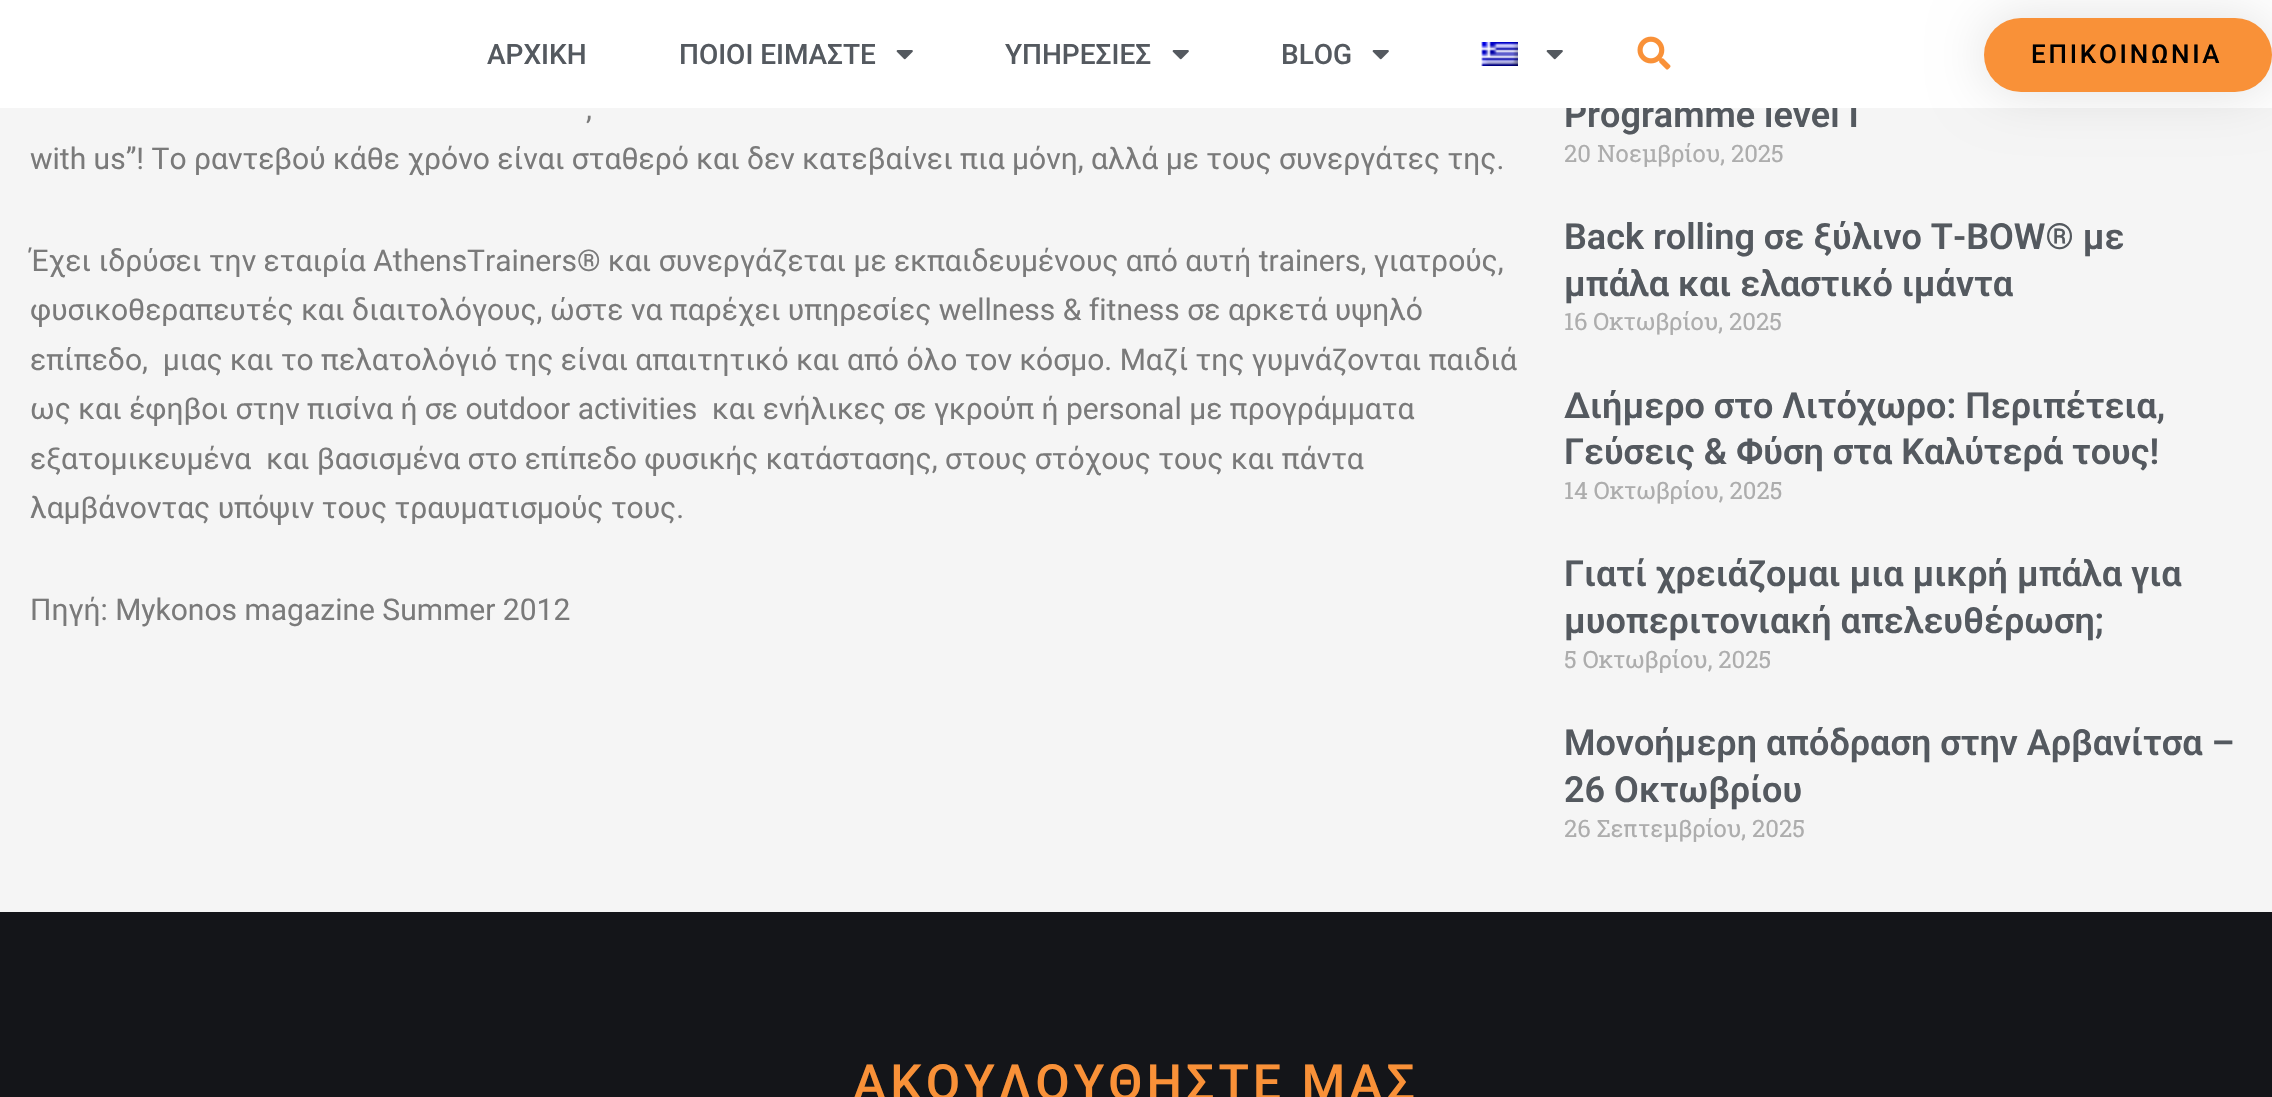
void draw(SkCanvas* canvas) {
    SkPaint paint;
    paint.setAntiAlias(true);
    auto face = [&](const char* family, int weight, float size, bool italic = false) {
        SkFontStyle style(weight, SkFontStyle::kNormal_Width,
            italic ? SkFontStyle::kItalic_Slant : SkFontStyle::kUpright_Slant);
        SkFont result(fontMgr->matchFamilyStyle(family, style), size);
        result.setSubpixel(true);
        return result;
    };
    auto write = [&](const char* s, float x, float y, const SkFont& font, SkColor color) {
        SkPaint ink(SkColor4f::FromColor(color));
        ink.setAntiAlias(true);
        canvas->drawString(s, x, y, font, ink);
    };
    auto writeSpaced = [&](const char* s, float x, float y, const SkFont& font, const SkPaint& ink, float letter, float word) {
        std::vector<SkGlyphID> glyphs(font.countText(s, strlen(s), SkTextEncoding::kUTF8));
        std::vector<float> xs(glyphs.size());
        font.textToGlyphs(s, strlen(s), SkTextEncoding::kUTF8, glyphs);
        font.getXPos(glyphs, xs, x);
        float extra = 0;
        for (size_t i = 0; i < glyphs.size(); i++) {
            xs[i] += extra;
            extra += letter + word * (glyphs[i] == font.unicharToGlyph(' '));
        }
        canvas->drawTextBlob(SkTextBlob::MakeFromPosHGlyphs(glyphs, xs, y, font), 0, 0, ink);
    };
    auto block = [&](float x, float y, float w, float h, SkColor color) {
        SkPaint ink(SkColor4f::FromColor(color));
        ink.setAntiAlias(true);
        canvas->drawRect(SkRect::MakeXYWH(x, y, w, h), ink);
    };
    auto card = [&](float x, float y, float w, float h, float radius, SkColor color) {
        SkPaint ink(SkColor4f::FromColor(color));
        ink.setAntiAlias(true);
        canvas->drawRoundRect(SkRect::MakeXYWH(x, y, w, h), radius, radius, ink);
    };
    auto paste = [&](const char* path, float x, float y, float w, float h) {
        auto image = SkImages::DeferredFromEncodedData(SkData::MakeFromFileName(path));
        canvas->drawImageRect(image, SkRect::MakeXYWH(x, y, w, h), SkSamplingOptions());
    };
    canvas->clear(SkColorSetRGB(245, 245, 245));
    auto kFont1 = face("Roboto", 600, 36);
    write("Programme level I", 1564, 127, kFont1, SkColorSetRGB(84, 89, 95));
    block(0, 0, 2272, 108, SK_ColorWHITE);
    auto kFont2 = face("Roboto", 500, 28);
    write("ΑΡΧΙΚΗ", 487, 64, kFont2, SkColorSetRGB(84, 89, 95));
    write("ΠΟΙΟΙ ΕΙΜΑΣΤΕ", 679, 64, kFont2, SkColorSetRGB(84, 89, 95));
    paste("pic1.png", 896, 50, 17, 10);
    write("ΥΠΗΡΕΣΙΕΣ", 1005, 64, kFont2, SkColorSetRGB(84, 89, 95));
    paste("pic1.png", 1172, 50, 17, 10);
    write("BLOG", 1281, 64, kFont2, SkColorSetRGB(84, 89, 95));
    paste("pic1.png", 1372, 50, 17, 10);
    paste("pic2.png", 1481, 42, 37, 24);
    paste("pic1.png", 1546, 50, 17, 10);
    paste("pic3.png", 1637, 36, 34, 34);
    paint.setColor(SkColorSetARGB(31, 0, 0, 0));
    paint.setMaskFilter(SkMaskFilter::MakeBlur(kNormal_SkBlurStyle, 27));
    canvas->drawRoundRect(SkRect::MakeXYWH(1984, 18, 288, 74), 37, 37, paint);
    paint.setMaskFilter(nullptr);
    card(1984, 18, 288, 74, 37, SkColorSetRGB(249, 145, 56));
    auto kFont3 = face("Roboto", 500, 26);
    paint.setColor(SK_ColorBLACK);
    writeSpaced("ΕΠΙΚΟΙΝΩΝΙΑ", 2031, 63, kFont3, paint, 2.75f, 0);
    auto kFont4 = face("Roboto", 400, 30);
    write(",", 586, 119, kFont4, SkColorSetRGB(122, 122, 122));
    write("with us”! Το ραντεβού κάθε χρόνο είναι σταθερό και δεν κατεβαίνει πια μόνη, αλλά με τους συνεργάτες της.", 30, 169, kFont4, SkColorSetRGB(122, 122, 122));
    write("Έχει ιδρύσει την εταιρία AthensTrainers® και συνεργάζεται με εκπαιδευμένους από αυτή trainers, γιατρούς,", 30, 271, kFont4, SkColorSetRGB(122, 122, 122));
    write("φυσικοθεραπευτές και διαιτολόγους, ώστε να παρέχει υπηρεσίες wellness & fitness σε αρκετά υψηλό", 30, 320, kFont4, SkColorSetRGB(122, 122, 122));
    write("επίπεδο,  μιας και το πελατολόγιό της είναι απαιτητικό και από όλο τον κόσμο. Μαζί της γυμνάζονται παιδιά", 30, 370, kFont4, SkColorSetRGB(122, 122, 122));
    write("ως και έφηβοι στην πισίνα ή σε outdoor activities  και ενήλικες σε γκρούπ ή personal με προγράμματα", 30, 419, kFont4, SkColorSetRGB(122, 122, 122));
    write("εξατομικευμένα  και βασισμένα στο επίπεδο φυσικής κατάστασης, στους στόχους τους και πάντα", 30, 469, kFont4, SkColorSetRGB(122, 122, 122));
    write("λαμβάνοντας υπόψιν τους τραυματισμούς τους.", 30, 518, kFont4, SkColorSetRGB(122, 122, 122));
    write("Πηγή: Mykonos magazine Summer 2012", 30, 620, kFont4, SkColorSetRGB(122, 122, 122));
    auto kFont5 = face("Roboto Slab", 400, 24);
    write("20 Νοεμβρίου, 2025", 1564, 162, kFont5, SkColorSetRGB(173, 173, 173));
    write("Back rolling σε ξύλινο T-BOW® με", 1564, 249, kFont1, SkColorSetRGB(84, 89, 95));
    write("μπάλα και ελαστικό ιμάντα", 1564, 296, kFont1, SkColorSetRGB(84, 89, 95));
    write("16 Οκτωβρίου, 2025", 1564, 330, kFont5, SkColorSetRGB(173, 173, 173));
    write("Διήμερο στο Λιτόχωρο: Περιπέτεια,", 1564, 418, kFont1, SkColorSetRGB(84, 89, 95));
    write("Γεύσεις & Φύση στα Καλύτερά τους!", 1564, 464, kFont1, SkColorSetRGB(84, 89, 95));
    write("14 Οκτωβρίου, 2025", 1564, 499, kFont5, SkColorSetRGB(173, 173, 173));
    write("Γιατί χρειάζομαι μια μικρή μπάλα για", 1564, 586, kFont1, SkColorSetRGB(84, 89, 95));
    write("μυοπεριτονιακή απελευθέρωση;", 1564, 633, kFont1, SkColorSetRGB(84, 89, 95));
    write("5 Οκτωβρίου, 2025", 1564, 668, kFont5, SkColorSetRGB(173, 173, 173));
    write("Μονοήμερη απόδραση στην Αρβανίτσα –", 1564, 755, kFont1, SkColorSetRGB(84, 89, 95));
    write("26 Οκτωβρίου", 1564, 802, kFont1, SkColorSetRGB(84, 89, 95));
    write("26 Σεπτεμβρίου, 2025", 1564, 837, kFont5, SkColorSetRGB(173, 173, 173));
    block(0, 912, 2272, 185, SkColorSetRGB(20, 21, 25));
    auto kFont6 = face("Roboto", 500, 50);
    paint.setColor(SkColorSetRGB(249, 145, 56));
    writeSpaced("ΑΚΟΥΛΟΥΘΗΣΤΕ ΜΑΣ", 853, 1100, kFont6, paint, 4, 0);
}
